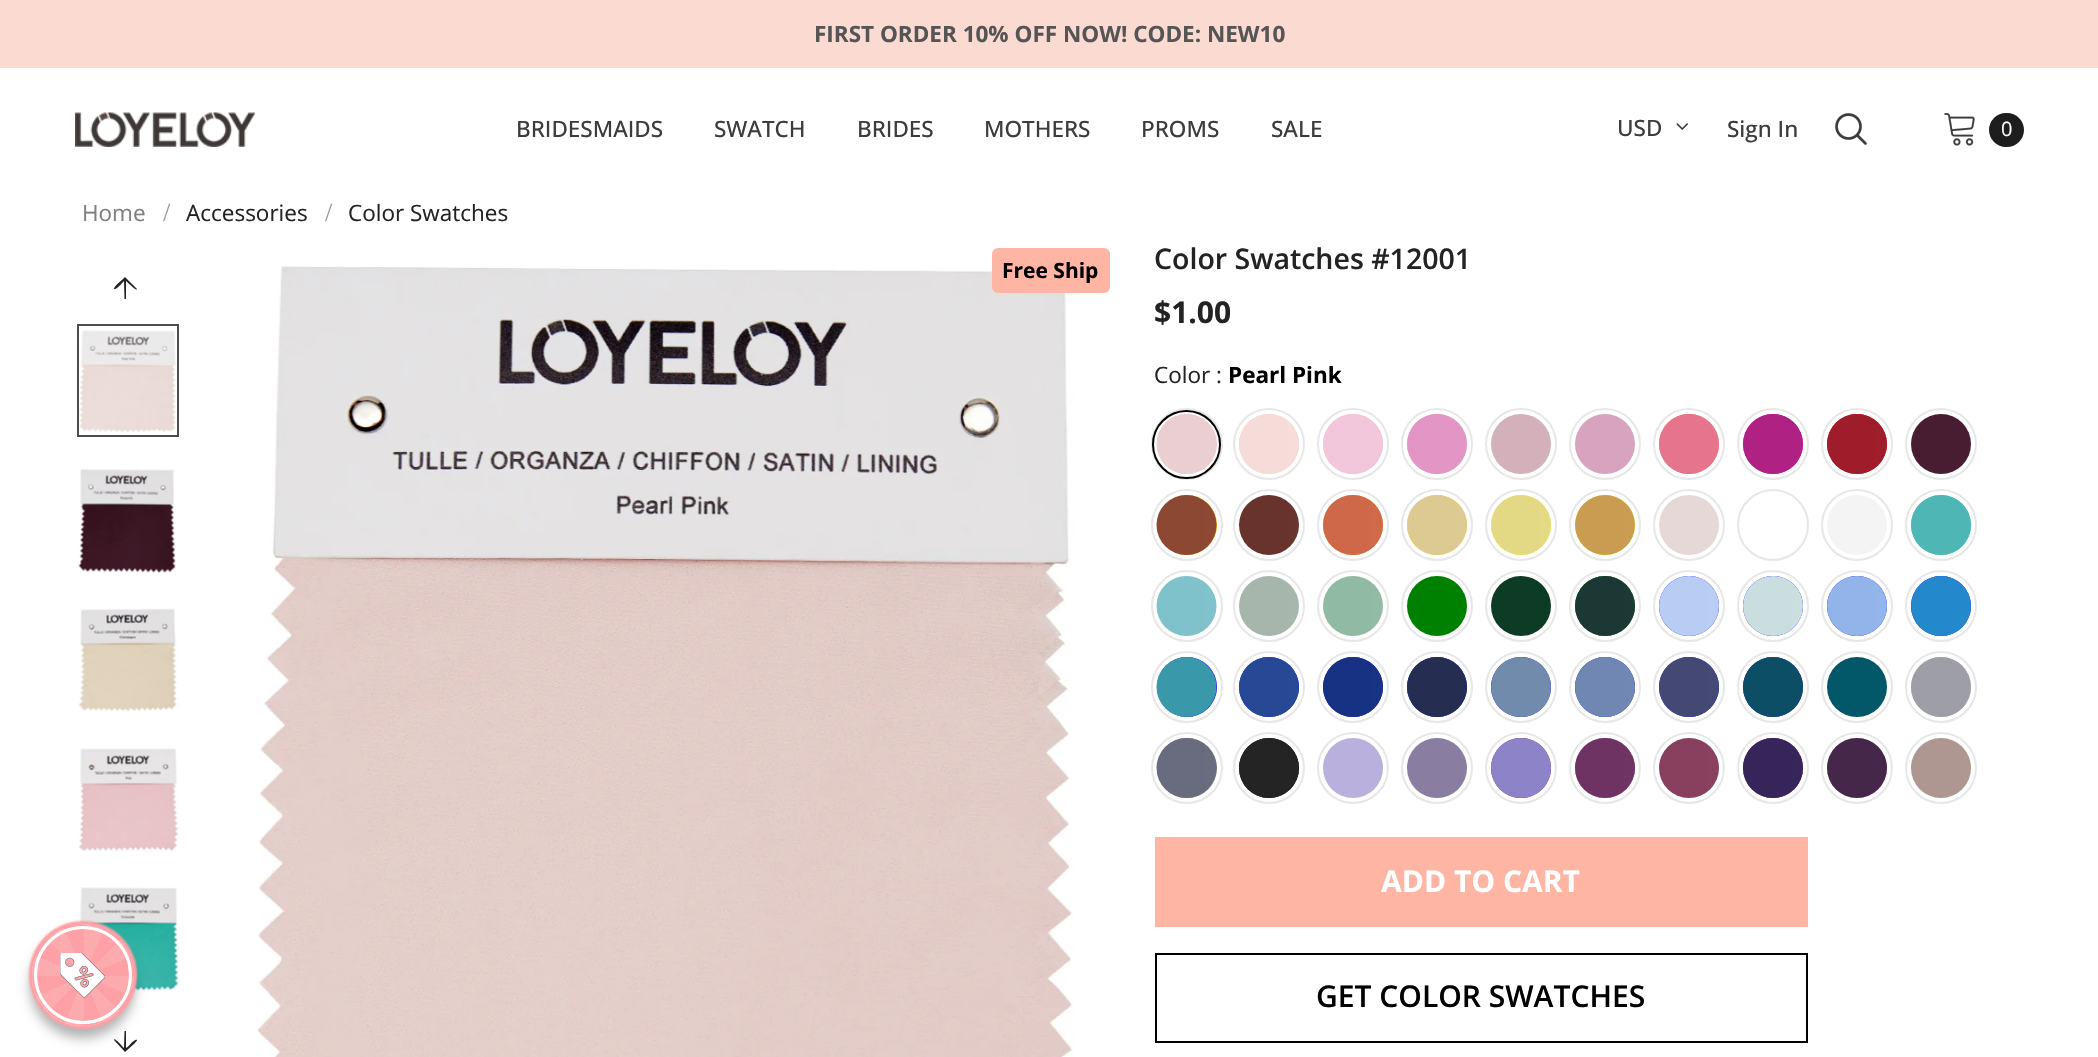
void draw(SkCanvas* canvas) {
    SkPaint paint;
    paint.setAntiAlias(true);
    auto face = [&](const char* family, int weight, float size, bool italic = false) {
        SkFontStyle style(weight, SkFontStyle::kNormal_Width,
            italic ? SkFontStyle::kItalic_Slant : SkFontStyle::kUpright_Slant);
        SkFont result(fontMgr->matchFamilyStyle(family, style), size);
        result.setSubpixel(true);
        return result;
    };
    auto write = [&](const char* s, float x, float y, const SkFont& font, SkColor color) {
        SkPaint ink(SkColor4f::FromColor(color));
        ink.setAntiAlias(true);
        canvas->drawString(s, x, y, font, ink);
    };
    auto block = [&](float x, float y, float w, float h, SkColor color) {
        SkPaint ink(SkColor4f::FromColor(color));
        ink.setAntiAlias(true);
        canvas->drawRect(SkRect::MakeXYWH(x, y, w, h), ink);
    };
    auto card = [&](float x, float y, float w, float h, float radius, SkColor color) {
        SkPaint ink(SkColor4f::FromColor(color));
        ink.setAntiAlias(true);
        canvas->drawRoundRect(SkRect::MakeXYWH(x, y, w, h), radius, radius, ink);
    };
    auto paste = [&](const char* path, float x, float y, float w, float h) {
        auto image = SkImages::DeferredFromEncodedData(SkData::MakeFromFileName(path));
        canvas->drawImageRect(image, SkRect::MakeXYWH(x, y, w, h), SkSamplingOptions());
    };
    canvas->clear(SK_ColorWHITE);
    block(0, 0, 2098, 68, SkColorSetRGB(251, 218, 210));
    auto kFont1 = face("Open Sans", 700, 22.5f);
    write("FIRST ORDER 10% OFF NOW! CODE: NEW10", 814, 42, kFont1, SkColorSetRGB(85, 85, 85));
    paste("pic1.png", 75, 112, 180, 35);
    auto kFont2 = face("Open Sans", 500, 22.5f);
    write("BRIDESMAIDS", 516, 137, kFont2, SkColorSetRGB(60, 60, 60));
    write("SWATCH", 714, 137, kFont2, SkColorSetRGB(60, 60, 60));
    write("BRIDES", 857, 137, kFont2, SkColorSetRGB(60, 60, 60));
    write("MOTHERS", 984, 137, kFont2, SkColorSetRGB(60, 60, 60));
    write("PROMS", 1141, 137, kFont2, SkColorSetRGB(60, 60, 60));
    write("SALE", 1271, 137, kFont2, SkColorSetRGB(60, 60, 60));
    write("USD", 1617, 136, kFont2, SkColorSetRGB(60, 60, 60));
    paste("pic2.png", 1676, 123, 12, 7);
    write("Sign In", 1727, 137, kFont2, SkColorSetRGB(60, 60, 60));
    paste("pic3.png", 1835, 113, 32, 32);
    paste("pic4.png", 1944, 113, 31, 33);
    card(1989, 113, 35, 34, 17, SkColorSetRGB(30, 30, 30));
    auto kFont3 = face("Open Sans", 400, 20);
    write("0", 2001, 136, kFont3, SK_ColorWHITE);
    paste("pic11.png", 76, 887, 103, 105);
    paint.setColor(SkColorSetRGB(35, 35, 35));
    canvas->drawPath(SkPathBuilder().moveTo(114, 1040).lineTo(125, 1052).lineTo(134.5f, 1043.5f).lineTo(137, 1040.5f).cubicTo(137.5f, 1039, 135, 1040, 134.5f, 1040.5f).cubicTo(131.5f, 1042, 129, 1046.5f, 126, 1048).lineTo(126, 1031).lineTo(124.5f, 1031).lineTo(124, 1048).cubicTo(122, 1046, 114, 1036.5f, 114, 1040).close().detach(), paint);
    paint.setColor(SkColorSetARGB(77, 0, 0, 0));
    paint.setMaskFilter(SkMaskFilter::MakeBlur(kNormal_SkBlurStyle, 6));
    canvas->drawRoundRect(SkRect::MakeXYWH(30, 933, 105, 105), 52.5f, 52.5f, paint);
    paint.setMaskFilter(nullptr);
    paint.setColor(SkColorSetRGB(253, 161, 166));
    paint.setMaskFilter(SkMaskFilter::MakeBlur(kNormal_SkBlurStyle, 1));
    canvas->drawRoundRect(SkRect::MakeXYWH(29, 921, 108, 108), 54, 54, paint);
    paint.setMaskFilter(nullptr);
    canvas->drawCircle(82.5f, 975.5f, 52.5f, paint);
    paint.setStyle(SkPaint::kStroke_Style);
    paint.setStrokeWidth(5);
    paint.setColor(SK_ColorWHITE);
    canvas->drawCircle(83, 975, 48.5f, paint);
    canvas->drawCircle(83, 975, 48.5f, paint);
    paint.setStrokeWidth(2);
    paint.setColor(SkColorSetRGB(253, 161, 166));
    canvas->drawCircle(83, 975, 50, paint);
    canvas->drawCircle(82.5f, 975.5f, 51.5f, paint);
    paint.setStyle(SkPaint::kFill_Style);
    paint.setColor(SkColorSetARGB(26, 255, 255, 255));
    canvas->drawPath(SkPathBuilder().moveTo(64, 928).cubicTo(58, 930, 52, 934, 47, 939).lineTo(84, 976).lineTo(36, 956).cubicTo(33, 962, 32, 969, 32, 976).lineTo(84, 976).lineTo(36, 996).cubicTo(39, 1002, 43, 1007, 48, 1012).lineTo(84, 976).lineTo(65, 1023).cubicTo(71, 1025, 77, 1026, 84, 1026).lineTo(84, 976).lineTo(103, 1022).cubicTo(109, 1020, 114, 1016, 119, 1011).lineTo(84, 976).lineTo(130, 995).cubicTo(132, 989, 134, 983, 134, 976).lineTo(84, 976).lineTo(131, 957).cubicTo(128, 951, 125, 945, 120, 940).lineTo(84, 976).lineTo(104, 929).cubicTo(98, 926, 91, 924, 84, 924).lineTo(84, 976).close().detach(), paint);
    paste("pic5.png", 60, 953, 45, 45);
    auto kFont4 = face("Open Sans", 400, 22.5f);
    write("Home", 82, 221, kFont4, SkColorSetRGB(128, 128, 128));
    auto kFont5 = face("Liberation Serif", 400, 26);
    write("/", 163, 221, kFont5, SkColorSetRGB(153, 153, 153));
    write("Accessories", 186, 221, kFont4, SkColorSetRGB(35, 35, 35));
    write("/", 325, 221, kFont5, SkColorSetRGB(153, 153, 153));
    write("Color Swatches", 348, 221, kFont4, SkColorSetRGB(35, 35, 35));
    paste("pic6.png", 257, 266, 817, 791);
    card(992, 248, 118, 45, 6, SkColorSetRGB(255, 181, 163));
    auto kFont6 = face("Open Sans", 700, 21);
    write("Free Ship", 1002, 278, kFont6, SK_ColorBLACK);
    paint.setColor(SkColorSetRGB(35, 35, 35));
    canvas->drawPath(SkPathBuilder().moveTo(137, 289).lineTo(125, 277).cubicTo(122, 280, 115, 285.5f, 114, 288.5f).cubicTo(113.5f, 289.5f, 115, 289, 115.5f, 289).cubicTo(119, 287, 121.5f, 283.5f, 124, 281).lineTo(124.5f, 299).lineTo(126, 299).lineTo(126, 281).cubicTo(128, 282.5f, 137, 292, 137, 289).close().detach(), paint);
    paste("pic7.png", 79, 330, 97, 103);
    paint.setStyle(SkPaint::kStroke_Style);
    paint.setColor(SkColorSetRGB(77, 77, 77));
    canvas->drawRect(SkRect::MakeXYWH(78, 325, 100, 111), paint);
    paste("pic8.png", 78, 469, 98, 104);
    paste("pic9.png", 78, 608, 102, 104);
    paste("pic10.png", 78, 748, 101, 103);
    auto kFont7 = face("Open Sans", 600, 28.5f);
    write("Color Swatches #12001", 1154, 269, kFont7, SkColorSetRGB(35, 35, 35));
    auto kFont8 = face("Open Sans", 700, 30);
    write("$1.00", 1154, 323, kFont8, SkColorSetRGB(35, 35, 35));
    write("Color :", 1154, 383, kFont4, SkColorSetRGB(35, 35, 35));
    write("Pearl Pink", 1228, 383, kFont1, SK_ColorBLACK);
    paint.setColor(SkColorSetRGB(231, 231, 231));
    canvas->drawCircle(1187, 444, 35, paint);
    paint.setStyle(SkPaint::kFill_Style);
    paint.setColor(SkColorSetRGB(255, 192, 203));
    canvas->drawCircle(1187, 444, 30, paint);
    paste("pic12.png", 1156, 414, 61, 60);
    paint.setStyle(SkPaint::kStroke_Style);
    paint.setColor(SK_ColorBLACK);
    canvas->drawCircle(1186.5f, 444.5f, 33.5f, paint);
    paint.setColor(SkColorSetRGB(231, 231, 231));
    canvas->drawCircle(1269, 444, 35, paint);
    paint.setStyle(SkPaint::kFill_Style);
    paint.setColor(SkColorSetRGB(255, 192, 203));
    canvas->drawCircle(1269, 444, 30, paint);
    paste("pic13.png", 1239, 414, 60, 60);
    paint.setStyle(SkPaint::kStroke_Style);
    paint.setColor(SkColorSetRGB(231, 231, 231));
    canvas->drawCircle(1353, 444, 35, paint);
    paint.setStyle(SkPaint::kFill_Style);
    paint.setColor(SkColorSetRGB(255, 192, 203));
    canvas->drawCircle(1353, 444, 30, paint);
    paste("pic14.png", 1323, 414, 60, 60);
    paint.setStyle(SkPaint::kStroke_Style);
    paint.setColor(SkColorSetRGB(231, 231, 231));
    canvas->drawCircle(1437, 444, 35, paint);
    paint.setStyle(SkPaint::kFill_Style);
    paint.setColor(SkColorSetRGB(255, 192, 203));
    canvas->drawCircle(1437, 444, 30, paint);
    paste("pic15.png", 1407, 414, 60, 60);
    paint.setStyle(SkPaint::kStroke_Style);
    paint.setColor(SkColorSetRGB(231, 231, 231));
    canvas->drawCircle(1521, 444, 35, paint);
    paste("pic16.png", 1491, 414, 60, 60);
    canvas->drawCircle(1605, 444, 35, paint);
    paste("pic17.png", 1575, 414, 60, 60);
    canvas->drawCircle(1689, 444, 35, paint);
    paint.setStyle(SkPaint::kFill_Style);
    paint.setColor(SkColorSetRGB(255, 127, 80));
    canvas->drawCircle(1689, 444, 30, paint);
    paste("pic18.png", 1659, 414, 60, 60);
    paint.setStyle(SkPaint::kStroke_Style);
    paint.setColor(SkColorSetRGB(231, 231, 231));
    canvas->drawCircle(1773, 444, 35, paint);
    paint.setStyle(SkPaint::kFill_Style);
    paint.setColor(SkColorSetRGB(255, 0, 255));
    canvas->drawCircle(1773, 444, 30, paint);
    paste("pic19.png", 1743, 414, 60, 60);
    paint.setStyle(SkPaint::kStroke_Style);
    paint.setColor(SkColorSetRGB(231, 231, 231));
    canvas->drawCircle(1857, 444, 35, paint);
    paint.setStyle(SkPaint::kFill_Style);
    paint.setColor(SkColorSetRGB(255, 0, 0));
    canvas->drawCircle(1857, 444, 30, paint);
    paste("pic20.png", 1827, 414, 60, 60);
    paint.setStyle(SkPaint::kStroke_Style);
    paint.setColor(SkColorSetRGB(231, 231, 231));
    canvas->drawCircle(1941, 444, 35, paint);
    paste("pic21.png", 1911, 414, 60, 60);
    canvas->drawCircle(1187, 525, 35, paint);
    paint.setStyle(SkPaint::kFill_Style);
    paint.setColor(SkColorSetRGB(255, 165, 0));
    canvas->drawCircle(1187, 525, 30, paint);
    paste("pic22.png", 1156, 495, 61, 60);
    paint.setStyle(SkPaint::kStroke_Style);
    paint.setColor(SkColorSetRGB(231, 231, 231));
    canvas->drawCircle(1269, 525, 35, paint);
    paste("pic23.png", 1239, 495, 60, 60);
    canvas->drawCircle(1353, 525, 35, paint);
    paint.setStyle(SkPaint::kFill_Style);
    paint.setColor(SkColorSetRGB(255, 165, 0));
    canvas->drawCircle(1353, 525, 30, paint);
    paste("pic24.png", 1323, 495, 60, 60);
    paint.setStyle(SkPaint::kStroke_Style);
    paint.setColor(SkColorSetRGB(231, 231, 231));
    canvas->drawCircle(1437, 525, 35, paint);
    paint.setStyle(SkPaint::kFill_Style);
    paint.setColor(SkColorSetRGB(255, 215, 0));
    canvas->drawCircle(1437, 525, 30, paint);
    paste("pic25.png", 1407, 495, 60, 60);
    paint.setStyle(SkPaint::kStroke_Style);
    paint.setColor(SkColorSetRGB(231, 231, 231));
    canvas->drawCircle(1521, 525, 35, paint);
    paint.setStyle(SkPaint::kFill_Style);
    paint.setColor(SkColorSetRGB(255, 255, 0));
    canvas->drawCircle(1521, 525, 30, paint);
    paste("pic26.png", 1491, 495, 60, 60);
    paint.setStyle(SkPaint::kStroke_Style);
    paint.setColor(SkColorSetRGB(231, 231, 231));
    canvas->drawCircle(1605, 525, 35, paint);
    paint.setStyle(SkPaint::kFill_Style);
    paint.setColor(SkColorSetRGB(255, 255, 0));
    canvas->drawCircle(1605, 525, 30, paint);
    paste("pic27.png", 1575, 495, 60, 60);
    paint.setStyle(SkPaint::kStroke_Style);
    paint.setColor(SkColorSetRGB(231, 231, 231));
    canvas->drawCircle(1689, 525, 35, paint);
    paste("pic28.png", 1659, 495, 60, 60);
    canvas->drawCircle(1773, 525, 35, paint);
    canvas->drawCircle(1857, 525, 35, paint);
    paint.setStyle(SkPaint::kFill_Style);
    paint.setColor(SkColorSetRGB(255, 255, 240));
    canvas->drawCircle(1857, 525, 30, paint);
    paste("pic29.png", 1827, 495, 60, 60);
    paint.setStyle(SkPaint::kStroke_Style);
    paint.setColor(SkColorSetRGB(231, 231, 231));
    canvas->drawCircle(1941, 525, 35, paint);
    paint.setStyle(SkPaint::kFill_Style);
    paint.setColor(SkColorSetRGB(64, 224, 208));
    canvas->drawCircle(1941, 525, 30, paint);
    paste("pic30.png", 1911, 495, 60, 60);
    paint.setStyle(SkPaint::kStroke_Style);
    paint.setColor(SkColorSetRGB(231, 231, 231));
    canvas->drawCircle(1187, 606, 35, paint);
    paste("pic31.png", 1156, 576, 61, 60);
    canvas->drawCircle(1269, 606, 35, paint);
    paste("pic32.png", 1239, 576, 60, 60);
    canvas->drawCircle(1353, 606, 35, paint);
    paste("pic33.png", 1323, 576, 60, 60);
    canvas->drawCircle(1437, 606, 35, paint);
    paint.setStyle(SkPaint::kFill_Style);
    paint.setColor(SkColorSetRGB(0, 128, 0));
    canvas->drawCircle(1437, 606, 30, paint);
    paint.setStyle(SkPaint::kStroke_Style);
    paint.setColor(SkColorSetRGB(231, 231, 231));
    canvas->drawCircle(1521, 606, 35, paint);
    paste("pic34.png", 1491, 576, 60, 60);
    canvas->drawCircle(1605, 606, 35, paint);
    paint.setStyle(SkPaint::kFill_Style);
    paint.setColor(SkColorSetRGB(0, 128, 0));
    canvas->drawCircle(1605, 606, 30, paint);
    paste("pic35.png", 1575, 576, 60, 60);
    paint.setStyle(SkPaint::kStroke_Style);
    paint.setColor(SkColorSetRGB(231, 231, 231));
    canvas->drawCircle(1689, 606, 35, paint);
    paint.setStyle(SkPaint::kFill_Style);
    paint.setColor(SkColorSetRGB(0, 0, 255));
    canvas->drawCircle(1689, 606, 30, paint);
    paste("pic36.png", 1659, 576, 60, 60);
    paint.setStyle(SkPaint::kStroke_Style);
    paint.setColor(SkColorSetRGB(231, 231, 231));
    canvas->drawCircle(1773, 606, 35, paint);
    paint.setStyle(SkPaint::kFill_Style);
    paint.setColor(SkColorSetRGB(0, 0, 255));
    canvas->drawCircle(1773, 606, 30, paint);
    paste("pic37.png", 1743, 576, 60, 60);
    paint.setStyle(SkPaint::kStroke_Style);
    paint.setColor(SkColorSetRGB(231, 231, 231));
    canvas->drawCircle(1857, 606, 35, paint);
    paint.setStyle(SkPaint::kFill_Style);
    paint.setColor(SkColorSetRGB(0, 0, 255));
    canvas->drawCircle(1857, 606, 30, paint);
    paste("pic38.png", 1827, 576, 60, 60);
    paint.setStyle(SkPaint::kStroke_Style);
    paint.setColor(SkColorSetRGB(231, 231, 231));
    canvas->drawCircle(1941, 606, 35, paint);
    paint.setStyle(SkPaint::kFill_Style);
    paint.setColor(SkColorSetRGB(0, 0, 255));
    canvas->drawCircle(1941, 606, 30, paint);
    paste("pic39.png", 1911, 576, 60, 60);
    paint.setStyle(SkPaint::kStroke_Style);
    paint.setColor(SkColorSetRGB(231, 231, 231));
    canvas->drawCircle(1187, 687, 35, paint);
    paint.setStyle(SkPaint::kFill_Style);
    paint.setColor(SkColorSetRGB(0, 0, 255));
    canvas->drawCircle(1187, 687, 30, paint);
    paste("pic40.png", 1156, 657, 61, 60);
    paint.setStyle(SkPaint::kStroke_Style);
    paint.setColor(SkColorSetRGB(231, 231, 231));
    canvas->drawCircle(1269, 687, 35, paint);
    paint.setStyle(SkPaint::kFill_Style);
    paint.setColor(SkColorSetRGB(0, 0, 255));
    canvas->drawCircle(1269, 687, 30, paint);
    paste("pic41.png", 1239, 657, 60, 60);
    paint.setStyle(SkPaint::kStroke_Style);
    paint.setColor(SkColorSetRGB(231, 231, 231));
    canvas->drawCircle(1353, 687, 35, paint);
    paint.setStyle(SkPaint::kFill_Style);
    paint.setColor(SkColorSetRGB(0, 0, 255));
    canvas->drawCircle(1353, 687, 30, paint);
    paste("pic42.png", 1323, 657, 60, 60);
    paint.setStyle(SkPaint::kStroke_Style);
    paint.setColor(SkColorSetRGB(231, 231, 231));
    canvas->drawCircle(1437, 687, 35, paint);
    paint.setStyle(SkPaint::kFill_Style);
    paint.setColor(SkColorSetRGB(0, 0, 255));
    canvas->drawCircle(1437, 687, 30, paint);
    paste("pic43.png", 1407, 657, 60, 60);
    paint.setStyle(SkPaint::kStroke_Style);
    paint.setColor(SkColorSetRGB(231, 231, 231));
    canvas->drawCircle(1521, 687, 35, paint);
    paint.setStyle(SkPaint::kFill_Style);
    paint.setColor(SkColorSetRGB(0, 0, 255));
    canvas->drawCircle(1521, 687, 30, paint);
    paste("pic44.png", 1491, 657, 60, 60);
    paint.setStyle(SkPaint::kStroke_Style);
    paint.setColor(SkColorSetRGB(231, 231, 231));
    canvas->drawCircle(1605, 687, 35, paint);
    paint.setStyle(SkPaint::kFill_Style);
    paint.setColor(SkColorSetRGB(0, 0, 255));
    canvas->drawCircle(1605, 687, 30, paint);
    paste("pic45.png", 1575, 657, 60, 60);
    paint.setStyle(SkPaint::kStroke_Style);
    paint.setColor(SkColorSetRGB(231, 231, 231));
    canvas->drawCircle(1689, 687, 35, paint);
    paint.setStyle(SkPaint::kFill_Style);
    paint.setColor(SkColorSetRGB(0, 0, 255));
    canvas->drawCircle(1689, 687, 30, paint);
    paste("pic46.png", 1659, 657, 60, 60);
    paint.setStyle(SkPaint::kStroke_Style);
    paint.setColor(SkColorSetRGB(231, 231, 231));
    canvas->drawCircle(1773, 687, 35, paint);
    paint.setStyle(SkPaint::kFill_Style);
    paint.setColor(SkColorSetRGB(0, 0, 255));
    canvas->drawCircle(1773, 687, 30, paint);
    paste("pic47.png", 1743, 657, 60, 60);
    paint.setStyle(SkPaint::kStroke_Style);
    paint.setColor(SkColorSetRGB(231, 231, 231));
    canvas->drawCircle(1857, 687, 35, paint);
    paste("pic48.png", 1827, 657, 60, 60);
    canvas->drawCircle(1941, 687, 35, paint);
    paint.setStyle(SkPaint::kFill_Style);
    paint.setColor(SkColorSetRGB(192, 192, 192));
    canvas->drawCircle(1941, 687, 30, paint);
    paste("pic49.png", 1911, 657, 60, 60);
    paint.setStyle(SkPaint::kStroke_Style);
    paint.setColor(SkColorSetRGB(231, 231, 231));
    canvas->drawCircle(1187, 768, 35, paint);
    paint.setStyle(SkPaint::kFill_Style);
    paint.setColor(SkColorSetRGB(128, 128, 128));
    canvas->drawCircle(1187, 768, 30, paint);
    paste("pic50.png", 1156, 738, 61, 60);
    paint.setStyle(SkPaint::kStroke_Style);
    paint.setColor(SkColorSetRGB(231, 231, 231));
    canvas->drawCircle(1269, 768, 35, paint);
    paint.setStyle(SkPaint::kFill_Style);
    paint.setColor(SK_ColorBLACK);
    canvas->drawCircle(1269, 768, 30, paint);
    paste("pic51.png", 1239, 738, 60, 60);
    paint.setStyle(SkPaint::kStroke_Style);
    paint.setColor(SkColorSetRGB(231, 231, 231));
    canvas->drawCircle(1353, 768, 35, paint);
    paste("pic52.png", 1323, 738, 60, 60);
    canvas->drawCircle(1437, 768, 35, paint);
    paste("pic53.png", 1407, 738, 60, 60);
    canvas->drawCircle(1521, 768, 35, paint);
    paint.setStyle(SkPaint::kFill_Style);
    paint.setColor(SkColorSetRGB(128, 0, 128));
    canvas->drawCircle(1521, 768, 30, paint);
    paste("pic54.png", 1491, 738, 60, 60);
    paint.setStyle(SkPaint::kStroke_Style);
    paint.setColor(SkColorSetRGB(231, 231, 231));
    canvas->drawCircle(1605, 768, 35, paint);
    paint.setStyle(SkPaint::kFill_Style);
    paint.setColor(SkColorSetRGB(218, 112, 214));
    canvas->drawCircle(1605, 768, 30, paint);
    paste("pic55.png", 1575, 738, 60, 60);
    paint.setStyle(SkPaint::kStroke_Style);
    paint.setColor(SkColorSetRGB(231, 231, 231));
    canvas->drawCircle(1689, 768, 35, paint);
    paste("pic56.png", 1659, 738, 60, 60);
    canvas->drawCircle(1773, 768, 35, paint);
    paint.setStyle(SkPaint::kFill_Style);
    paint.setColor(SkColorSetRGB(128, 0, 128));
    canvas->drawCircle(1773, 768, 30, paint);
    paste("pic57.png", 1743, 738, 60, 60);
    paint.setStyle(SkPaint::kStroke_Style);
    paint.setColor(SkColorSetRGB(231, 231, 231));
    canvas->drawCircle(1857, 768, 35, paint);
    paint.setStyle(SkPaint::kFill_Style);
    paint.setColor(SkColorSetRGB(221, 160, 221));
    canvas->drawCircle(1857, 768, 30, paint);
    paste("pic58.png", 1827, 738, 60, 60);
    paint.setStyle(SkPaint::kStroke_Style);
    paint.setColor(SkColorSetRGB(231, 231, 231));
    canvas->drawCircle(1941, 768, 35, paint);
    paste("pic59.png", 1911, 738, 60, 60);
    block(1155, 837, 653, 90, SkColorSetRGB(255, 181, 163));
    write("ADD TO CART", 1381, 892, kFont8, SK_ColorWHITE);
    paint.setColor(SK_ColorBLACK);
    canvas->drawRect(SkRect::MakeXYWH(1156, 954, 651, 88), paint);
    auto kFont9 = face("Open Sans", 600, 30);
    write("GET COLOR SWATCHES", 1316, 1007, kFont9, SK_ColorBLACK);
}
